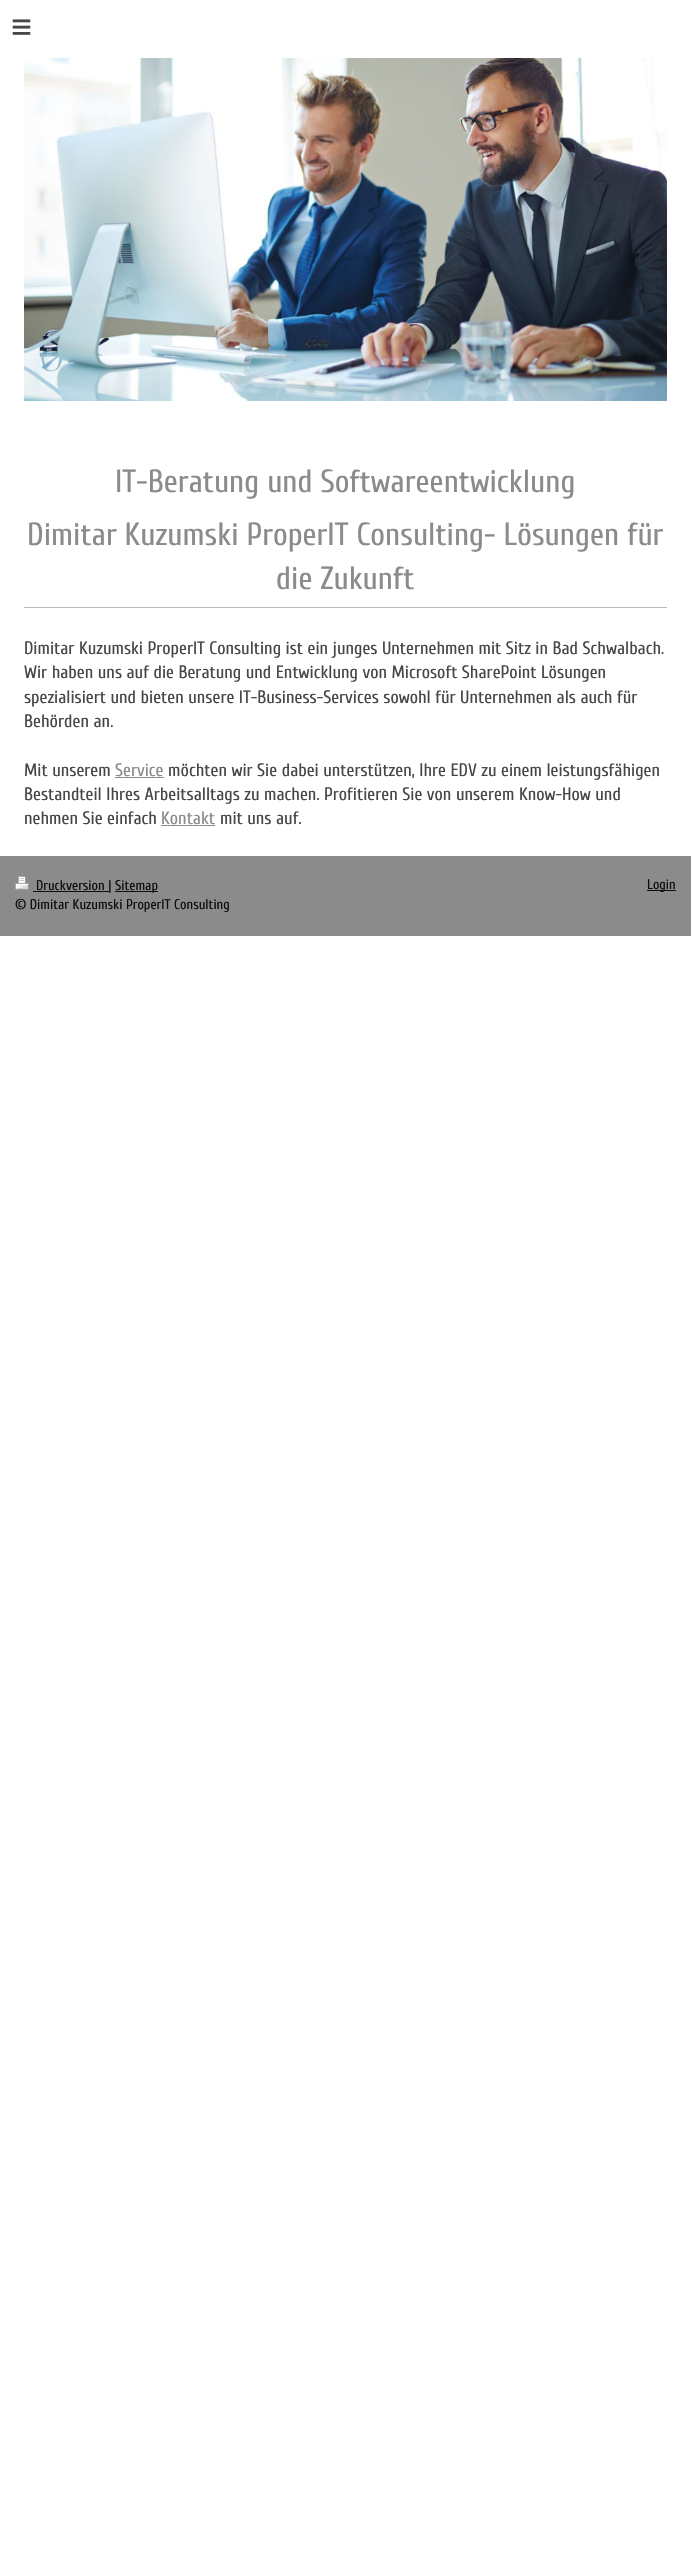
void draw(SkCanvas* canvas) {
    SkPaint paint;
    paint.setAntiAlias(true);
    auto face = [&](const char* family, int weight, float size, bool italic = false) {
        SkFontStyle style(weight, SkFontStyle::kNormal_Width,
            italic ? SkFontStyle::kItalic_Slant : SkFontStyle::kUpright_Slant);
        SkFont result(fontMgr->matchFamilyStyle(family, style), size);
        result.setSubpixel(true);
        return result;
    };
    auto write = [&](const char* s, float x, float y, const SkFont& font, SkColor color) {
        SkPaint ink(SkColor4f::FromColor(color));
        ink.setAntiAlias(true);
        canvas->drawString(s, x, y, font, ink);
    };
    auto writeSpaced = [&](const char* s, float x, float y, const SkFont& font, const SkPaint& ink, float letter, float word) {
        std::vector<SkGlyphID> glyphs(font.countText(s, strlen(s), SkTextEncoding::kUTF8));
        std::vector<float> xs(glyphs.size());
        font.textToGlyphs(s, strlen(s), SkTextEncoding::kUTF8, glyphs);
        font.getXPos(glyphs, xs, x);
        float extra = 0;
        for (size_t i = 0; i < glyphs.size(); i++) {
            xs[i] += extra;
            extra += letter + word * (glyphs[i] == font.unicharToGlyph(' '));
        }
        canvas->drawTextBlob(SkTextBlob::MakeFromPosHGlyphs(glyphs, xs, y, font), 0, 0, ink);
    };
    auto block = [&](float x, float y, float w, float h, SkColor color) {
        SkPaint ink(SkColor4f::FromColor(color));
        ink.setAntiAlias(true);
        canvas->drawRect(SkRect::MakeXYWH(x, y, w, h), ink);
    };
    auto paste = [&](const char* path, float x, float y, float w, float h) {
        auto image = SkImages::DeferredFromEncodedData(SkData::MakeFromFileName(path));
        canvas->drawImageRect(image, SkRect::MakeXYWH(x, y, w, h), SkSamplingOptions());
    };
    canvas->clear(SK_ColorWHITE);
    auto kFont1 = face("Liberation Sans", 400, 36);
    paint.setColor(SkColorSetRGB(71, 71, 71));
    writeSpaced("≡", 11, 39, kFont1, paint, 10, 0);
    paste("pic1.png", 24, 58, 643, 343);
    auto kFont2 = face("Cuprum", 400, 32);
    write("IT-Beratung und Softwareentwicklung", 115, 492, kFont2, SkColorSetRGB(139, 139, 139));
    write("Dimitar Kuzumski ProperIT Consulting- Lösungen für", 27, 545, kFont2, SkColorSetRGB(139, 139, 139));
    write("die Zukunft", 276, 589, kFont2, SkColorSetRGB(139, 139, 139));
    block(24, 607, 643, 1, SkColorSetRGB(186, 186, 186));
    auto kFont3 = face("Cuprum", 400, 18);
    write("Dimitar Kuzumski ProperIT Consulting ist ein junges Unternehmen mit Sitz in Bad Schwalbach.", 24, 654, kFont3, SkColorSetRGB(71, 71, 71));
    write("Wir haben uns auf die Beratung und Entwicklung von Microsoft SharePoint Lösungen", 24, 678, kFont3, SkColorSetRGB(71, 71, 71));
    write("spezialisiert und bieten unsere IT-Business-Services sowohl für Unternehmen als auch für", 24, 703, kFont3, SkColorSetRGB(71, 71, 71));
    write("Behörden an.", 24, 727, kFont3, SkColorSetRGB(71, 71, 71));
    write("Mit unserem", 24, 776, kFont3, SkColorSetRGB(71, 71, 71));
    write("Service", 115, 776, kFont3, SkColorSetRGB(139, 139, 139));
    block(115, 777, 49, 1, SkColorSetRGB(139, 139, 139));
    write("möchten wir Sie dabei unterstützen, Ihre EDV zu einem leistungsfähigen", 168, 776, kFont3, SkColorSetRGB(71, 71, 71));
    write("Bestandteil Ihres Arbeitsalltags zu machen. Profitieren Sie von unserem Know-How und", 24, 800, kFont3, SkColorSetRGB(71, 71, 71));
    write("nehmen Sie einfach", 24, 824, kFont3, SkColorSetRGB(71, 71, 71));
    write("Kontakt", 161, 824, kFont3, SkColorSetRGB(139, 139, 139));
    block(161, 825, 54, 1, SkColorSetRGB(139, 139, 139));
    write("mit uns auf.", 220, 824, kFont3, SkColorSetRGB(71, 71, 71));
    block(0, 856, 691, 80, SkColorSetRGB(139, 139, 139));
    paste("pic2.png", 15, 876, 14, 14);
    block(33, 891, 76, 1, SkColorSetRGB(14, 14, 14));
    auto kFont4 = face("Cuprum", 400, 14);
    write("Druckversion |", 36, 890, kFont4, SkColorSetRGB(14, 14, 14));
    block(115, 891, 43, 1, SkColorSetRGB(14, 14, 14));
    write("Sitemap", 115, 890, kFont4, SkColorSetRGB(14, 14, 14));
    write("© Dimitar Kuzumski ProperIT Consulting", 15, 909, kFont4, SkColorSetRGB(14, 14, 14));
    block(647, 890, 29, 1, SkColorSetRGB(14, 14, 14));
    write("Login", 647, 889, kFont4, SkColorSetRGB(14, 14, 14));
}
